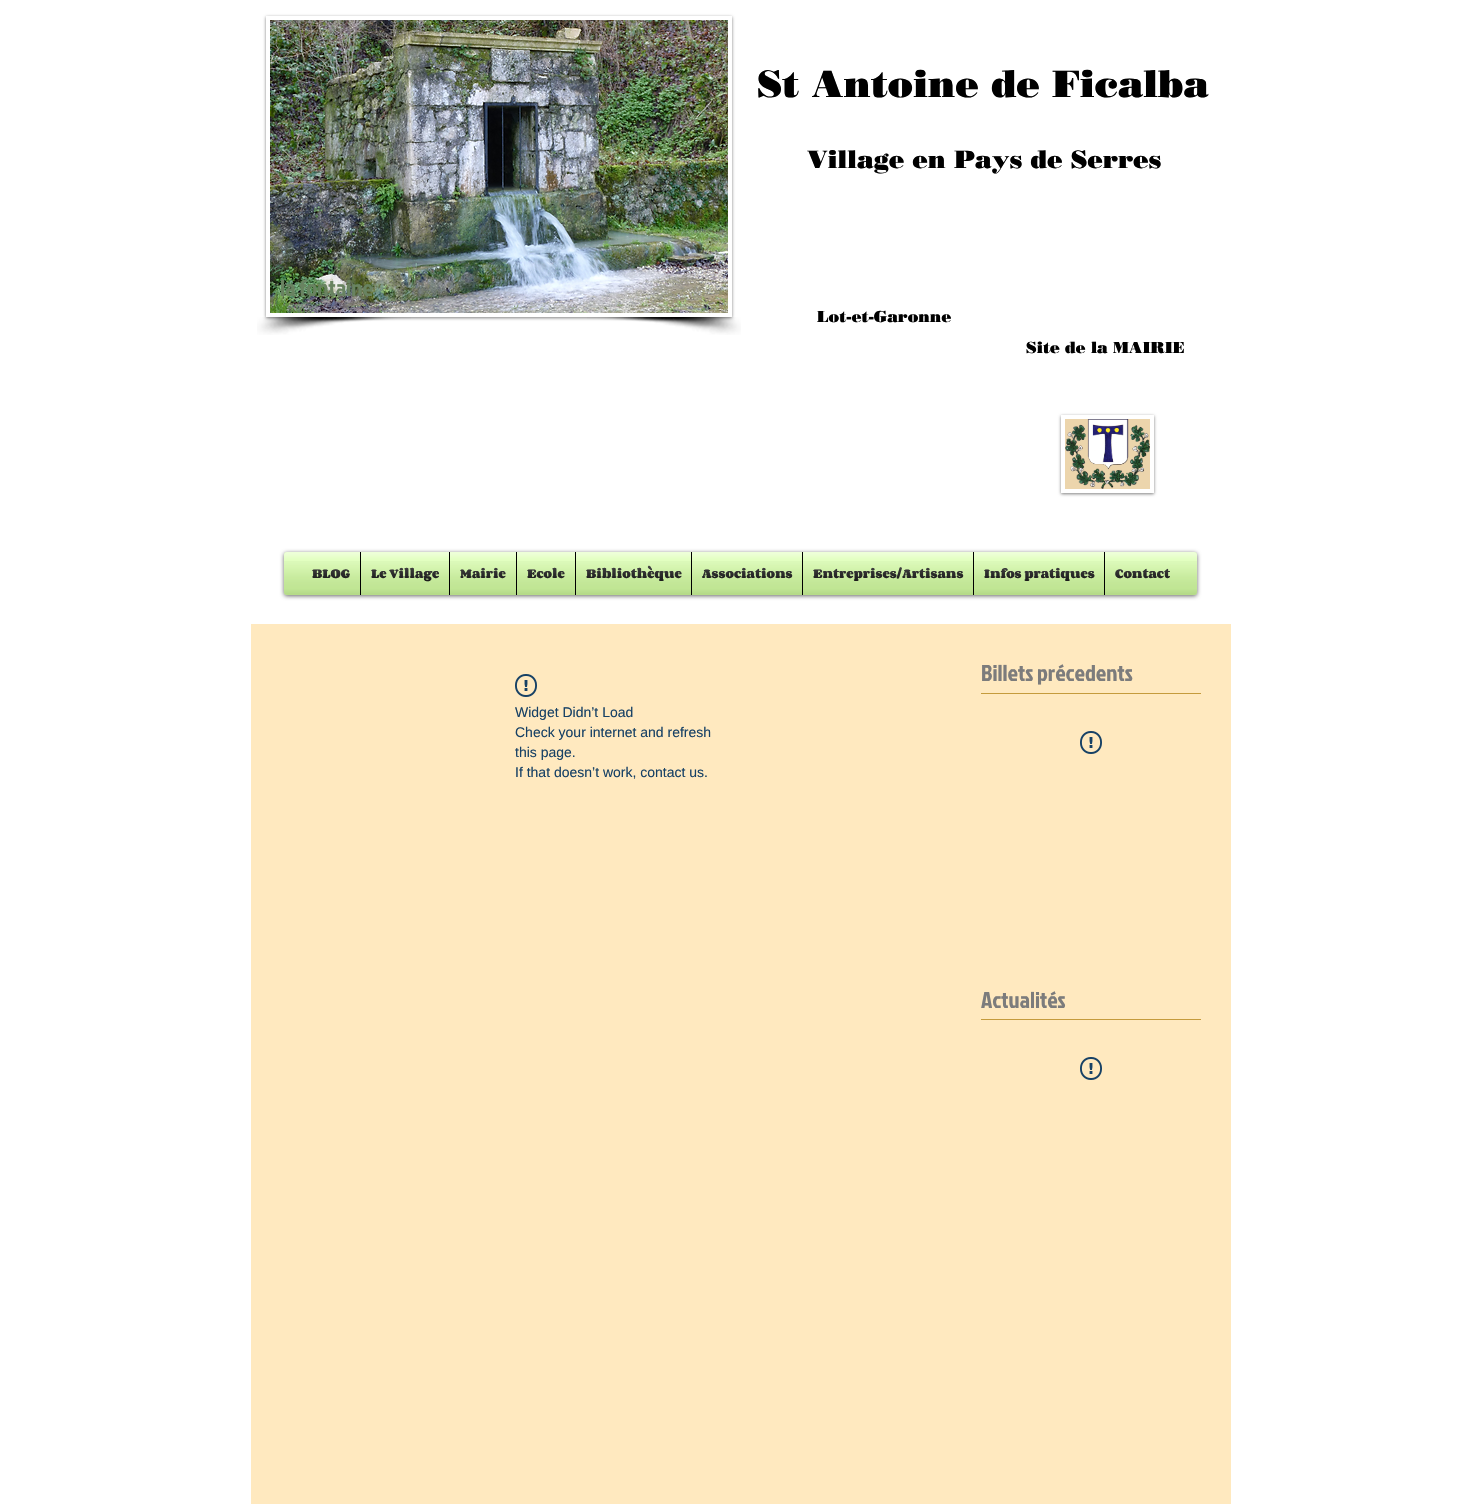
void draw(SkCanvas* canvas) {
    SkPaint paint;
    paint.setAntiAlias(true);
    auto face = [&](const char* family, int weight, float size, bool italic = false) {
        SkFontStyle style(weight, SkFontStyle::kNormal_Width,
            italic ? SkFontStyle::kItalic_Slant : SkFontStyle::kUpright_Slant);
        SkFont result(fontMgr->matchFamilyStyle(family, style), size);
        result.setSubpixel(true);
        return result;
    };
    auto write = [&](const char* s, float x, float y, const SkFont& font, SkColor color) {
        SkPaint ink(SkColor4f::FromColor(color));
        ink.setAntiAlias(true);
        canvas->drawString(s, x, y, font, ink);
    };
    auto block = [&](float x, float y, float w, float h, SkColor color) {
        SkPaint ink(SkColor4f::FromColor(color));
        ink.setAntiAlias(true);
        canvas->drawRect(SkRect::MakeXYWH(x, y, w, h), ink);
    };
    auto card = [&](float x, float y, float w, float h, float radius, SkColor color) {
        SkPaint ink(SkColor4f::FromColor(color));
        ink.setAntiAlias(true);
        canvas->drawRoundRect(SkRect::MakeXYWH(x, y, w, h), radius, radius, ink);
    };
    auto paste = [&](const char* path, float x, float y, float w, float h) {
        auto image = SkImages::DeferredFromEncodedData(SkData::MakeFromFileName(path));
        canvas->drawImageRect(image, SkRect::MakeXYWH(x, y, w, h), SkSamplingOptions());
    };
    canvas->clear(SK_ColorWHITE);
    auto kFont1 = face("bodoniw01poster", 900, 38);
    write("St Antoine de Ficalba", 757, 97, kFont1, SK_ColorBLACK);
    auto kFont2 = face("bodoniw01poster", 900, 25);
    write("Village en Pays de Serres", 807, 168, kFont2, SK_ColorBLACK);
    canvas->save();
    canvas->clipPath(SkPathBuilder(SkPathFillType::kEvenOdd).moveTo(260, 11).lineTo(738, 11).lineTo(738, 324).lineTo(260, 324).close().moveTo(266, 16).lineTo(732, 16).lineTo(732, 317).lineTo(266, 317).close().detach(), true);
    paint.setColor(SkColorSetARGB(128, 0, 0, 0));
    paint.setMaskFilter(SkMaskFilter::MakeBlur(kNormal_SkBlurStyle, 1.5f));
    canvas->drawRect(SkRect::MakeXYWH(266, 17, 466, 301), paint);
    paint.setMaskFilter(nullptr);
    canvas->restore();
    paste("pic1.png", 270, 20, 458, 293);
    auto kFont3 = face("Jockey One", 400, 23);
    write("la fontaine", 280, 296, kFont3, SkColorSetRGB(105, 131, 97));
    paste("pic2.png", 257, 317, 154, 18);
    paste("pic3.png", 587, 317, 154, 18);
    auto kFont4 = face("bodoniw01poster", 900, 16);
    write("Lot-et-Garonne", 817, 322, kFont4, SK_ColorBLACK);
    write("Site de la MAIRIE", 1026, 353, kFont4, SK_ColorBLACK);
    canvas->save();
    canvas->clipPath(SkPathBuilder(SkPathFillType::kEvenOdd).moveTo(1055, 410).lineTo(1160, 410).lineTo(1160, 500).lineTo(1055, 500).close().moveTo(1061, 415).lineTo(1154, 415).lineTo(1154, 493).lineTo(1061, 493).close().detach(), true);
    paint.setMaskFilter(SkMaskFilter::MakeBlur(kNormal_SkBlurStyle, 1.5f));
    canvas->drawRect(SkRect::MakeXYWH(1061, 416, 93, 78), paint);
    paint.setMaskFilter(nullptr);
    canvas->restore();
    paste("pic4.png", 1065, 419, 85, 70);
    paint.setColor(SkColorSetARGB(153, 0, 0, 0));
    paint.setMaskFilter(SkMaskFilter::MakeBlur(kNormal_SkBlurStyle, 2));
    canvas->drawRoundRect(SkRect::MakeXYWH(284, 553, 913, 43), 3, 3, paint);
    paint.setMaskFilter(nullptr);
    card(284, 552, 913, 43, 3, SkColorSetRGB(211, 255, 158));
    paste("pic5.png", 284, 552, 913, 41);
    paste("pic6.png", 284, 561, 913, 34);
    block(302, 552, 58, 43, SkColorSetRGB(211, 255, 158));
    auto kFont5 = face("Corben", 700, 11);
    write("BLOG", 312, 578, kFont5, SK_ColorBLACK);
    paste("pic7.png", 302, 552, 58, 41);
    paste("pic8.png", 302, 561, 58, 34);
    block(361, 552, 88, 43, SkColorSetRGB(211, 255, 158));
    block(360, 552, 1, 43, SK_ColorBLACK);
    write("Le Village", 371, 578, kFont5, SK_ColorBLACK);
    paste("pic9.png", 361, 552, 88, 41);
    paste("pic10.png", 361, 561, 88, 34);
    block(450, 552, 66, 43, SkColorSetRGB(211, 255, 158));
    block(449, 552, 1, 43, SK_ColorBLACK);
    write("Mairie", 460, 578, kFont5, SK_ColorBLACK);
    paste("pic11.png", 450, 552, 66, 41);
    paste("pic12.png", 450, 561, 66, 34);
    block(517, 552, 58, 43, SkColorSetRGB(211, 255, 158));
    block(516, 552, 1, 43, SK_ColorBLACK);
    write("Ecole", 527, 578, kFont5, SK_ColorBLACK);
    paste("pic13.png", 517, 552, 58, 41);
    paste("pic14.png", 517, 561, 58, 34);
    block(576, 552, 115, 43, SkColorSetRGB(211, 255, 158));
    block(575, 552, 1, 43, SK_ColorBLACK);
    write("Bibliothèque", 586, 578, kFont5, SK_ColorBLACK);
    paste("pic15.png", 576, 552, 115, 41);
    paste("pic16.png", 576, 561, 115, 34);
    block(692, 552, 110, 43, SkColorSetRGB(211, 255, 158));
    block(691, 552, 1, 43, SK_ColorBLACK);
    write("Associations", 702, 578, kFont5, SK_ColorBLACK);
    paste("pic17.png", 692, 552, 110, 41);
    paste("pic18.png", 692, 561, 110, 34);
    block(803, 552, 170, 43, SkColorSetRGB(211, 255, 158));
    block(802, 552, 1, 43, SK_ColorBLACK);
    write("Entreprises/Artisans", 813, 578, kFont5, SK_ColorBLACK);
    paste("pic19.png", 803, 552, 170, 41);
    paste("pic20.png", 803, 561, 170, 34);
    block(974, 552, 130, 43, SkColorSetRGB(211, 255, 158));
    block(973, 552, 1, 43, SK_ColorBLACK);
    write("Infos pratiques", 984, 578, kFont5, SK_ColorBLACK);
    paste("pic21.png", 974, 552, 130, 41);
    paste("pic22.png", 974, 561, 130, 34);
    block(1105, 552, 75, 43, SkColorSetRGB(211, 255, 158));
    block(1104, 552, 1, 43, SK_ColorBLACK);
    write("Contact", 1115, 578, kFont5, SK_ColorBLACK);
    paste("pic23.png", 1105, 552, 75, 41);
    paste("pic24.png", 1105, 561, 75, 34);
    block(251, 624, 980, 880, SkColorSetRGB(255, 233, 191));
    write("Billets précedents", 981, 681, kFont3, SkColorSetRGB(124, 124, 124));
    block(981, 693, 220, 1, SkColorSetRGB(197, 155, 60));
    paste("pic25.png", 515, 674, 22, 23);
    auto kFont6 = face("Liberation Sans", 400, 14);
    write("Widget Didn’t Load", 515, 717, kFont6, SkColorSetRGB(23, 65, 101));
    write("Check your internet and refresh", 515, 737, kFont6, SkColorSetRGB(23, 65, 101));
    write("this page.", 515, 757, kFont6, SkColorSetRGB(23, 65, 101));
    write("If that doesn’t work, contact us.", 515, 777, kFont6, SkColorSetRGB(23, 65, 101));
    paste("pic25.png", 1080, 731, 22, 23);
    write("Actualités", 981, 1008, kFont3, SkColorSetRGB(124, 124, 124));
    block(981, 1019, 220, 1, SkColorSetRGB(197, 155, 60));
    paste("pic25.png", 1080, 1057, 22, 23);
}
